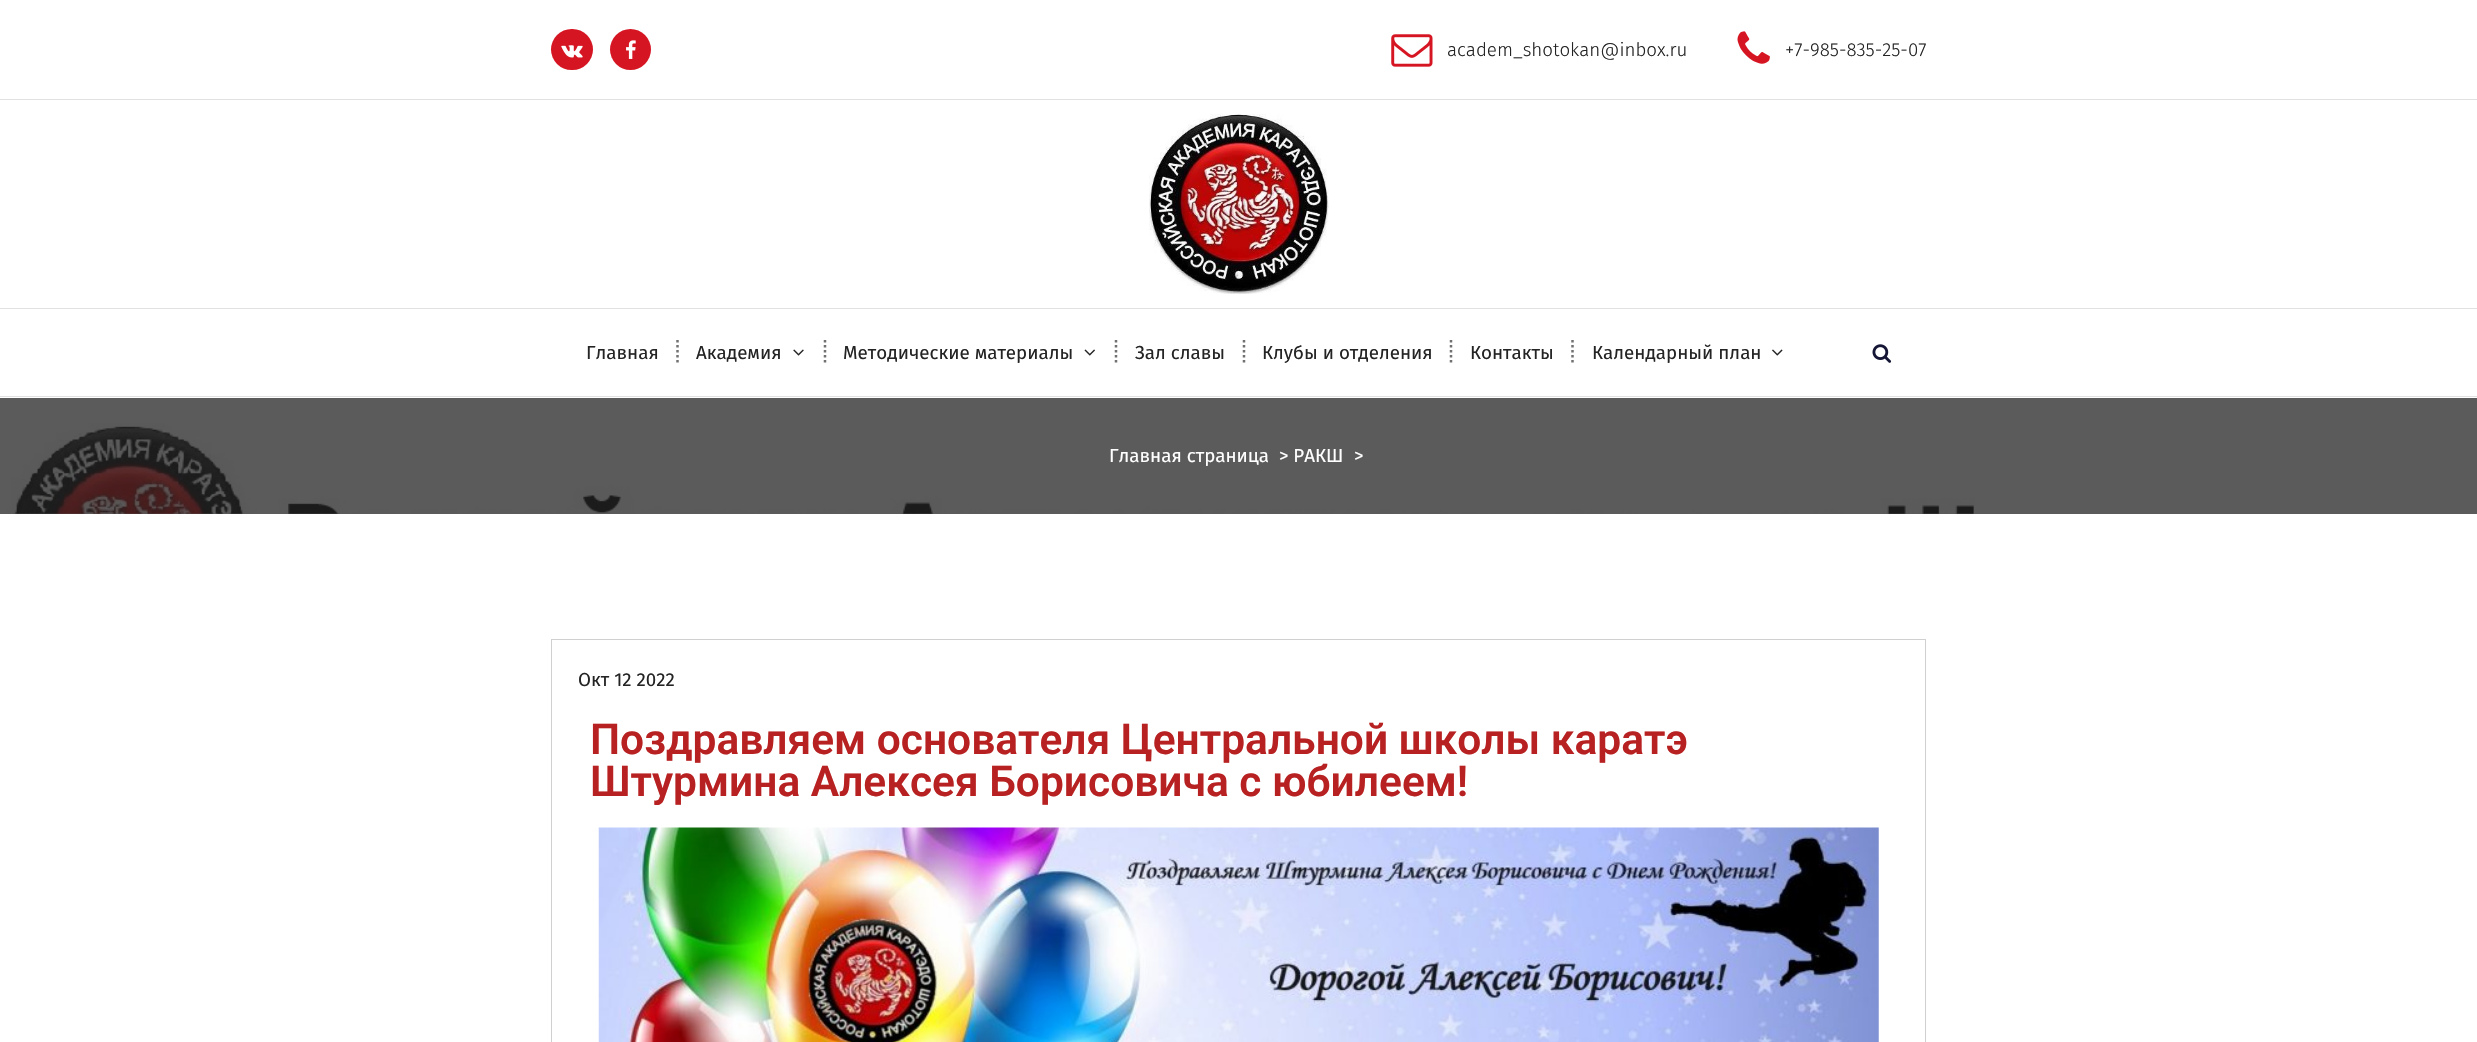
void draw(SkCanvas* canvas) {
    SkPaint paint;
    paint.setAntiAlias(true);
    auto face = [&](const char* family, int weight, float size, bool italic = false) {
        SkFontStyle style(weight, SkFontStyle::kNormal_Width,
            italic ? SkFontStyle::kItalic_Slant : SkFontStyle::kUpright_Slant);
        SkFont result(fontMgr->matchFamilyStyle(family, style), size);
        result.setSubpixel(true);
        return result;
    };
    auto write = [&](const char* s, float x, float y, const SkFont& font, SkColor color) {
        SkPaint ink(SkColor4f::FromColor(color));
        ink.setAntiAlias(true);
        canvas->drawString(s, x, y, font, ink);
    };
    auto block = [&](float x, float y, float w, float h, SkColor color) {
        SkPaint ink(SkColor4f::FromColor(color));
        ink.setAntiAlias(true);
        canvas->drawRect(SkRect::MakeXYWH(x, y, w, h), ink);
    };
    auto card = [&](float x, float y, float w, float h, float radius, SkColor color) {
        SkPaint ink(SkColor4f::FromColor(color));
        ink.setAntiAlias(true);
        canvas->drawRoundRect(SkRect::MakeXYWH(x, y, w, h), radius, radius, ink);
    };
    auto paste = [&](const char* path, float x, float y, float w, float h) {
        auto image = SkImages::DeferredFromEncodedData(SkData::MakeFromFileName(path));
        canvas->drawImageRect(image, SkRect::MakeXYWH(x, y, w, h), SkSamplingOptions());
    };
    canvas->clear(SK_ColorWHITE);
    block(0, 398, 2477, 116, SkColorSetRGB(91, 91, 91));
    block(0, 99, 2477, 1, SkColorSetRGB(225, 225, 225));
    card(551, 29, 42, 41, 20.5f, SkColorSetRGB(214, 21, 35));
    paste("pic1.png", 561, 45, 22, 13);
    paint.setColor(SkColorSetRGB(214, 21, 35));
    canvas->drawCircle(630.5f, 49.5f, 20.5f, paint);
    paste("pic2.png", 626, 40, 10, 19);
    paste("pic3.png", 1391, 34, 42, 33);
    auto kFont1 = face("Fira Sans", 300, 18.75f);
    write("academ_shotokan@inbox.ru", 1447, 56, kFont1, SkColorSetRGB(36, 36, 36));
    paste("pic4.png", 1737, 31, 33, 33);
    write("+7-985-835-25-07", 1785, 56, kFont1, SkColorSetRGB(36, 36, 36));
    paste("pic5.png", 1149, 114, 180, 180);
    block(0, 308, 2477, 1, SkColorSetRGB(225, 225, 225));
    block(0, 396, 2477, 1, SkColorSetRGB(225, 225, 225));
    auto kFont2 = face("Fira Sans", 400, 18.75f);
    write("Главная", 586, 359, kFont2, SkColorSetRGB(36, 36, 36));
    paint.setStyle(SkPaint::kStroke_Style);
    paint.setStrokeWidth(2.5f);
    paint.setColor(SkColorSetRGB(113, 113, 113));
    paint.setPathEffect(SkDashPathEffect::Make({{2.5f, 2.5f}}, 0));
    canvas->drawPath(SkPathBuilder().moveTo(677.5f, 340).lineTo(677.5f, 365).detach(), paint);
    paint.setPathEffect(nullptr);
    write("Академия", 696, 359, kFont2, SkColorSetRGB(36, 36, 36));
    paste("pic6.png", 793, 349, 11, 7);
    paint.setPathEffect(SkDashPathEffect::Make({{2.5f, 2.5f}}, 0));
    canvas->drawPath(SkPathBuilder().moveTo(825, 340).lineTo(825, 365).detach(), paint);
    paint.setPathEffect(nullptr);
    write("Методические материалы", 843, 359, kFont2, SkColorSetRGB(36, 36, 36));
    paste("pic7.png", 1084, 349, 11, 7);
    paint.setPathEffect(SkDashPathEffect::Make({{2.5f, 2.5f}}, 0));
    canvas->drawPath(SkPathBuilder().moveTo(1116, 340).lineTo(1116, 365).detach(), paint);
    paint.setPathEffect(nullptr);
    write("Зал славы", 1135, 359, kFont2, SkColorSetRGB(36, 36, 36));
    paint.setPathEffect(SkDashPathEffect::Make({{2.5f, 2.5f}}, 0));
    canvas->drawPath(SkPathBuilder().moveTo(1244, 340).lineTo(1244, 365).detach(), paint);
    paint.setPathEffect(nullptr);
    write("Клубы и отделения", 1262, 359, kFont2, SkColorSetRGB(36, 36, 36));
    paint.setPathEffect(SkDashPathEffect::Make({{2.5f, 2.5f}}, 0));
    canvas->drawPath(SkPathBuilder().moveTo(1451, 340).lineTo(1451, 365).detach(), paint);
    paint.setPathEffect(nullptr);
    write("Контакты", 1470, 359, kFont2, SkColorSetRGB(36, 36, 36));
    paint.setPathEffect(SkDashPathEffect::Make({{2.5f, 2.5f}}, 0));
    canvas->drawPath(SkPathBuilder().moveTo(1572.5f, 340).lineTo(1572.5f, 365).detach(), paint);
    paint.setPathEffect(nullptr);
    write("Календарный план", 1592, 359, kFont2, SkColorSetRGB(36, 36, 36));
    paste("pic8.png", 1772, 349, 11, 7);
    paste("pic9.png", 1872, 344, 20, 19);
    paste("pic10.png", 6, 423, 1969, 91);
    write("Главная страница", 1109, 462, kFont2, SK_ColorWHITE);
    write("> РАКШ", 1279, 462, kFont2, SK_ColorWHITE);
    write(">", 1354, 462, kFont2, SK_ColorWHITE);
    paint.setStrokeWidth(1);
    paint.setColor(SkColorSetRGB(208, 208, 208));
    canvas->drawRect(SkRect::MakeXYWH(551.5f, 639.5f, 1374, 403), paint);
    write("Окт 12 2022", 578, 686, kFont2, SkColorSetRGB(36, 36, 36));
    auto kFont3 = face("Roboto", 600, 42.5f);
    write("Поздравляем основателя Центральной школы каратэ", 590, 754, kFont3, SkColorSetRGB(184, 33, 33));
    write("Штурмина Алексея Борисовича с юбилеем!", 590, 796, kFont3, SkColorSetRGB(184, 33, 33));
    paste("pic11.png", 598, 827, 1281, 215);
}
